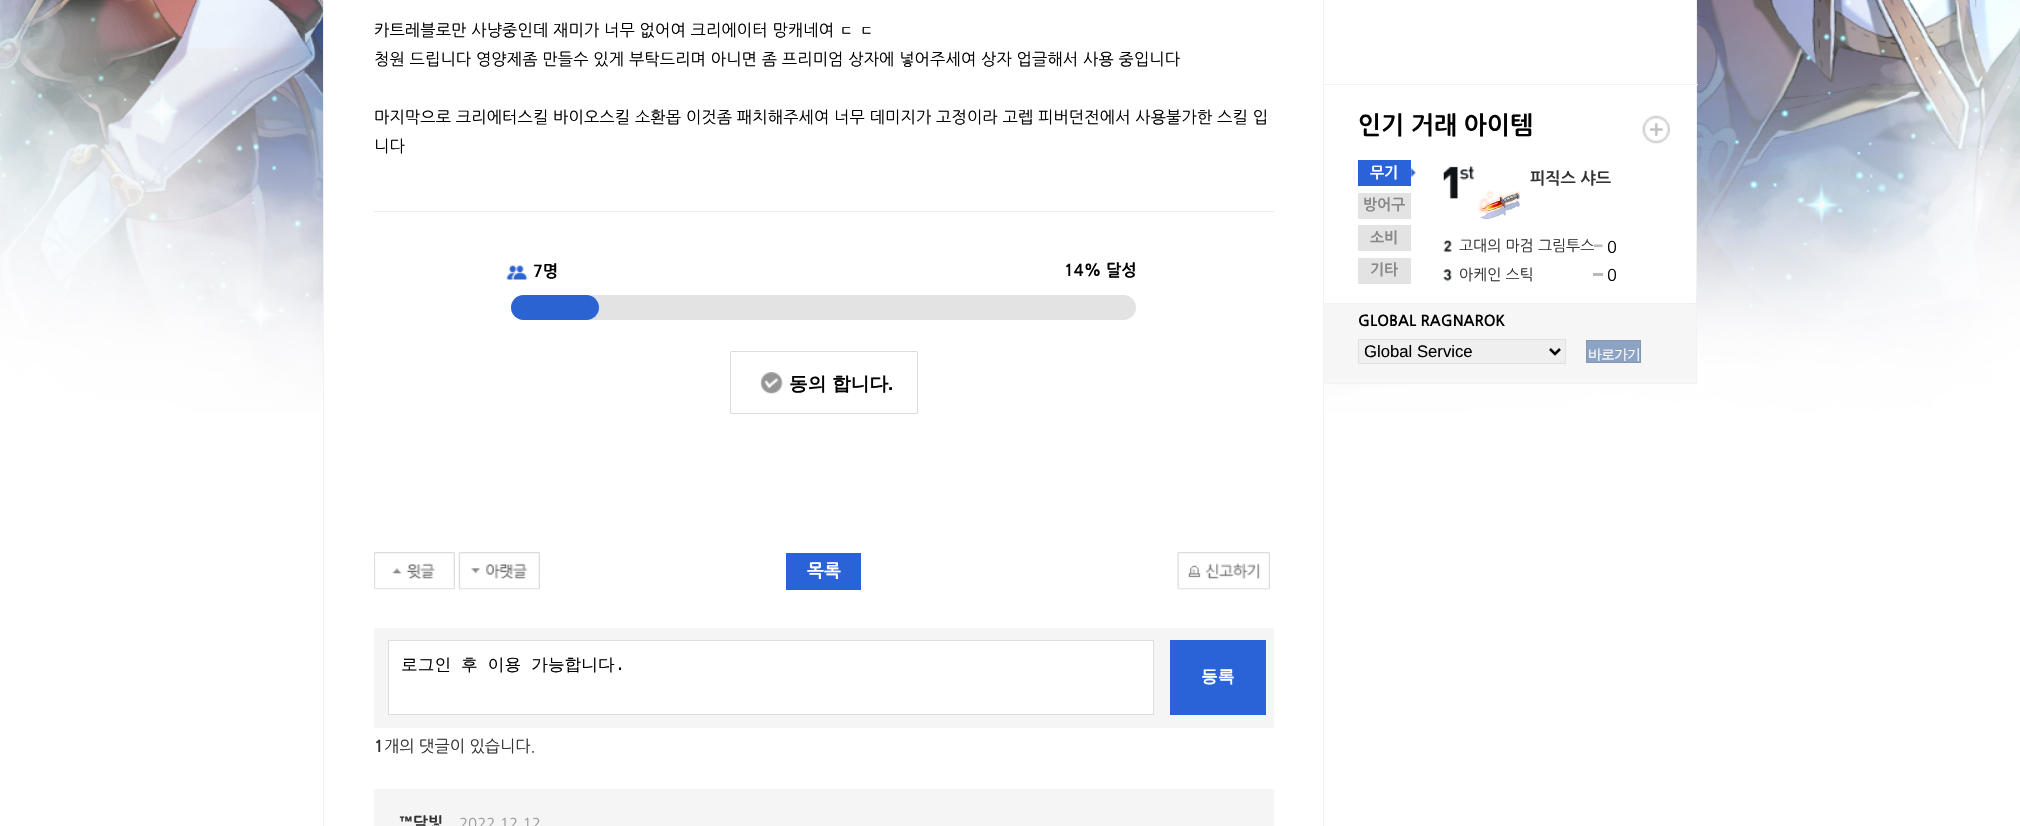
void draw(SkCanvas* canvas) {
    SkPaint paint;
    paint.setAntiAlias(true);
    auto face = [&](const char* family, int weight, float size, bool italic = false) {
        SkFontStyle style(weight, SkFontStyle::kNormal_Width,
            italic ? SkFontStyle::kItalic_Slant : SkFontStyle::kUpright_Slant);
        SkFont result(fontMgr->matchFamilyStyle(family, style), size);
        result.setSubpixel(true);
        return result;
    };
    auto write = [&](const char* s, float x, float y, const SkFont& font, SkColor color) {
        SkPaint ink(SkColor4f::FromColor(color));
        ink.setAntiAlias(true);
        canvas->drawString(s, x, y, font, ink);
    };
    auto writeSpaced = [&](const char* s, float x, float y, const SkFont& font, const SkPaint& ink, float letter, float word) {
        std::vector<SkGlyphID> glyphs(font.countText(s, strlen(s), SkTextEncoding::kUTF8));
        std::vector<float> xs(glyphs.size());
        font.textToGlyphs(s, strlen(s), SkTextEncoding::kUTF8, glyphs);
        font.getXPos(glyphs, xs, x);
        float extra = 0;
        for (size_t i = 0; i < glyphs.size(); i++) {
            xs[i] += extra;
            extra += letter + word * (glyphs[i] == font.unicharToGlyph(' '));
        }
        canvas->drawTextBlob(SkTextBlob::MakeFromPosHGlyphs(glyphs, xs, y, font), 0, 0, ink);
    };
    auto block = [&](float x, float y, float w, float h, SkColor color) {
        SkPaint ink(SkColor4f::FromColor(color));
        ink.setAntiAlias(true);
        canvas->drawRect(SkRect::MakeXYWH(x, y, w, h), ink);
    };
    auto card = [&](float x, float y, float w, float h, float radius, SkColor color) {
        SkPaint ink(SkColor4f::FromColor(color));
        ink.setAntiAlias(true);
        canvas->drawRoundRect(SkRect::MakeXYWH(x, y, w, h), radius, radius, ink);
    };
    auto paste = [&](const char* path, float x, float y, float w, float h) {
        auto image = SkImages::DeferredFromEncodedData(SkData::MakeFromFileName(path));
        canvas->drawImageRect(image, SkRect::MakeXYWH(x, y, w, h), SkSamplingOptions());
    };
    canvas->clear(SK_ColorWHITE);
    paste("pic1.png", 0, 0, 2020, 413);
    block(324, 0, 999, 413, SK_ColorWHITE);
    block(1696, 304, 1, 80, SkColorSetRGB(242, 242, 242));
    block(1323, 383, 375, 1, SkColorSetRGB(242, 242, 242));
    paint.setStyle(SkPaint::kStroke_Style);
    paint.setStrokeWidth(1);
    paint.setColor(SkColorSetRGB(242, 242, 242));
    canvas->drawRect(SkRect::MakeXYWH(323.5f, -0.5f, 1000, 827), paint);
    block(374, 211, 900, 1, SkColorSetRGB(237, 237, 237));
    auto kFont1 = face("NanumGothic", 400, 16.25f);
    paint.setStyle(SkPaint::kFill_Style);
    paint.setColor(SK_ColorBLACK);
    writeSpaced("카트레블로만 사냥중인데 재미가 너무 없어여 크리에이터 망캐네여 ㄷ ㄷ", 374, 36, kFont1, paint, 0.15f, 0);
    writeSpaced("청원 드립니다 영양제좀 만들수 있게 부탁드리며 아니면 좀 프리미엄 상자에 넣어주세여 상자 업글해서 사용 중입니다", 374, 65, kFont1, paint, 0.15f, 0);
    writeSpaced("마지막으로 크리에터스킬 바이오스킬 소환몹 이것좀 패치해주세여 너무 데미지가 고정이라 고렙 피버던전에서 사용불가한 스킬 입", 374, 123, kFont1, paint, 0.15f, 0);
    writeSpaced("니다", 374, 152, kFont1, paint, 0.15f, 0);
    paste("pic2.png", 506, 265, 22, 15);
    auto kFont2 = face("NanumGothic", 700, 16.25f);
    write("7명", 533, 277, kFont2, SK_ColorBLACK);
    write("14% 달성", 1064, 276, kFont2, SK_ColorBLACK);
    card(511, 295, 625, 25, 12.5f, SkColorSetRGB(227, 227, 227));
    card(511, 295, 88, 25, 12.5f, SkColorSetRGB(44, 99, 211));
    paint.setStyle(SkPaint::kStroke_Style);
    paint.setColor(SkColorSetRGB(221, 221, 221));
    canvas->drawRoundRect(SkRect::MakeXYWH(730.5f, 351.5f, 187, 62), 0.5f, 0.5f, paint);
    paste("pic3.png", 760, 372, 23, 22);
    auto kFont3 = face("WenQuanYi Zen Hei", 700, 18.75f);
    write("동의 합니다", 789, 390, kFont3, SK_ColorBLACK);
    auto kFont4 = face("Liberation Sans", 700, 18.75f);
    write(".", 888, 390, kFont4, SK_ColorBLACK);
    paste("pic4.png", 374, 552, 81, 38);
    paste("pic5.png", 458, 552, 82, 38);
    block(786, 553, 75, 37, SkColorSetRGB(41, 99, 215));
    auto kFont5 = face("NanumGothic", 700, 18);
    write("목록", 807, 577, kFont5, SK_ColorWHITE);
    paste("pic6.png", 1177, 552, 93, 38);
    block(374, 628, 900, 100, SkColorSetRGB(245, 245, 245));
    paint.setStyle(SkPaint::kFill_Style);
    paint.setColor(SK_ColorWHITE);
    canvas->drawRect(SkRect::MakeXYWH(388.5f, 640.5f, 765, 74), paint);
    paint.setStyle(SkPaint::kStroke_Style);
    paint.setColor(SkColorSetRGB(221, 221, 222));
    canvas->drawRect(SkRect::MakeXYWH(388.5f, 640.5f, 765, 74), paint);
    auto kFont6 = face("WenQuanYi Zen Hei", 500, 16.7f);
    paint.setStyle(SkPaint::kFill_Style);
    paint.setColor(SK_ColorBLACK);
    writeSpaced("로그인 후 이용 가능합니다", 401, 670, kFont6, paint, 0, 5);
    auto kFont7 = face("DejaVu Sans Mono", 400, 16.7f);
    write(".", 615, 670, kFont7, SK_ColorBLACK);
    block(1170, 640, 96, 75, SkColorSetRGB(41, 99, 215));
    auto kFont8 = face("WenQuanYi Zen Hei", 700, 16.7f);
    write("등록", 1201, 682, kFont8, SK_ColorWHITE);
    write("1", 374, 752, kFont2, SkColorSetRGB(51, 51, 51));
    write("개의 댓글이 있습니다.", 384, 752, kFont1, SkColorSetRGB(51, 51, 51));
    block(374, 789, 900, 37, SkColorSetRGB(245, 245, 245));
    write("™달빛", 399, 829, kFont2, SkColorSetRGB(51, 51, 51));
    auto kFont9 = face("NanumGothic", 400, 15);
    write("2022.12.12", 459, 829, kFont9, SkColorSetRGB(153, 153, 153));
    block(1324, 0, 372, 84, SK_ColorWHITE);
    block(1696, 0, 1, 304, SkColorSetRGB(242, 242, 242));
    block(1323, 84, 375, 1, SkColorSetRGB(242, 242, 242));
    block(1324, 85, 372, 218, SK_ColorWHITE);
    block(1323, 303, 366, 1, SkColorSetRGB(242, 242, 242));
    auto kFont10 = face("NanumGothic", 700, 24.5f);
    write("인기 거래 아이템", 1358, 134, kFont10, SK_ColorBLACK);
    paste("pic7.png", 1642, 115, 28, 29);
    paste("pic8.png", 1411, 168, 6, 9);
    block(1358, 160, 53, 26, SkColorSetRGB(41, 99, 215));
    auto kFont11 = face("NanumGothic", 700, 15);
    write("무기", 1370, 178, kFont11, SK_ColorWHITE);
    block(1358, 193, 53, 26, SkColorSetRGB(227, 227, 227));
    write("방어구", 1363, 210, kFont11, SkColorSetRGB(136, 136, 136));
    block(1358, 225, 53, 26, SkColorSetRGB(227, 227, 227));
    write("소비", 1370, 243, kFont11, SkColorSetRGB(136, 136, 136));
    block(1358, 258, 53, 26, SkColorSetRGB(227, 227, 227));
    write("기타", 1370, 275, kFont11, SkColorSetRGB(136, 136, 136));
    paste("pic9.png", 1443, 165, 31, 34);
    write("피직스 샤드", 1530, 184, kFont2, SkColorSetRGB(51, 51, 51));
    paste("pic10.png", 1478, 190, 42, 30);
    paste("pic11.png", 1443, 240, 9, 12);
    paste("pic12.png", 1593, 244, 10, 4);
    write("고대의 마검 그림투스", 1459, 251, kFont9, SkColorSetRGB(51, 51, 51));
    write("0", 1607, 253, kFont1, SK_ColorBLACK);
    paste("pic13.png", 1443, 269, 9, 12);
    write("아케인 스틱", 1459, 280, kFont9, SkColorSetRGB(51, 51, 51));
    block(1593, 273, 10, 3, SkColorSetRGB(186, 186, 186));
    write("0", 1607, 281, kFont1, SK_ColorBLACK);
    block(1324, 304, 372, 79, SkColorSetRGB(246, 246, 246));
    write("GLOBAL RAGNAROK", 1358, 326, kFont11, SK_ColorBLACK);
    paint.setColor(SkColorSetRGB(239, 239, 239));
    canvas->drawRect(SkRect::MakeXYWH(1358.5f, 339.5f, 207, 24), paint);
    paint.setStyle(SkPaint::kStroke_Style);
    paint.setColor(SkColorSetRGB(224, 224, 224));
    canvas->drawRect(SkRect::MakeXYWH(1358.5f, 339.5f, 207, 24), paint);
    paint.setStrokeWidth(2.5f);
    paint.setColor(SK_ColorBLACK);
    canvas->drawPath(SkPathBuilder().moveTo(1550, 349).lineTo(1555, 354).lineTo(1560, 349).detach(), paint);
    auto kFont12 = face("Liberation Sans", 400, 16.7f);
    write("Global Service", 1364, 357, kFont12, SK_ColorBLACK);
    paint.setStyle(SkPaint::kFill_Style);
    paint.setColor(SkColorSetRGB(141, 163, 195));
    canvas->drawRect(SkRect::MakeXYWH(1586.5f, 340.5f, 54, 22), paint);
    paint.setStyle(SkPaint::kStroke_Style);
    paint.setStrokeWidth(1);
    paint.setColor(SkColorSetRGB(132, 151, 178));
    canvas->drawRect(SkRect::MakeXYWH(1586.5f, 340.5f, 54, 22), paint);
    auto kFont13 = face("WenQuanYi Zen Hei", 500, 14);
    paint.setStyle(SkPaint::kFill_Style);
    paint.setColor(SK_ColorWHITE);
    writeSpaced("바로가기", 1588, 359, kFont13, paint, -1, 0);
}
